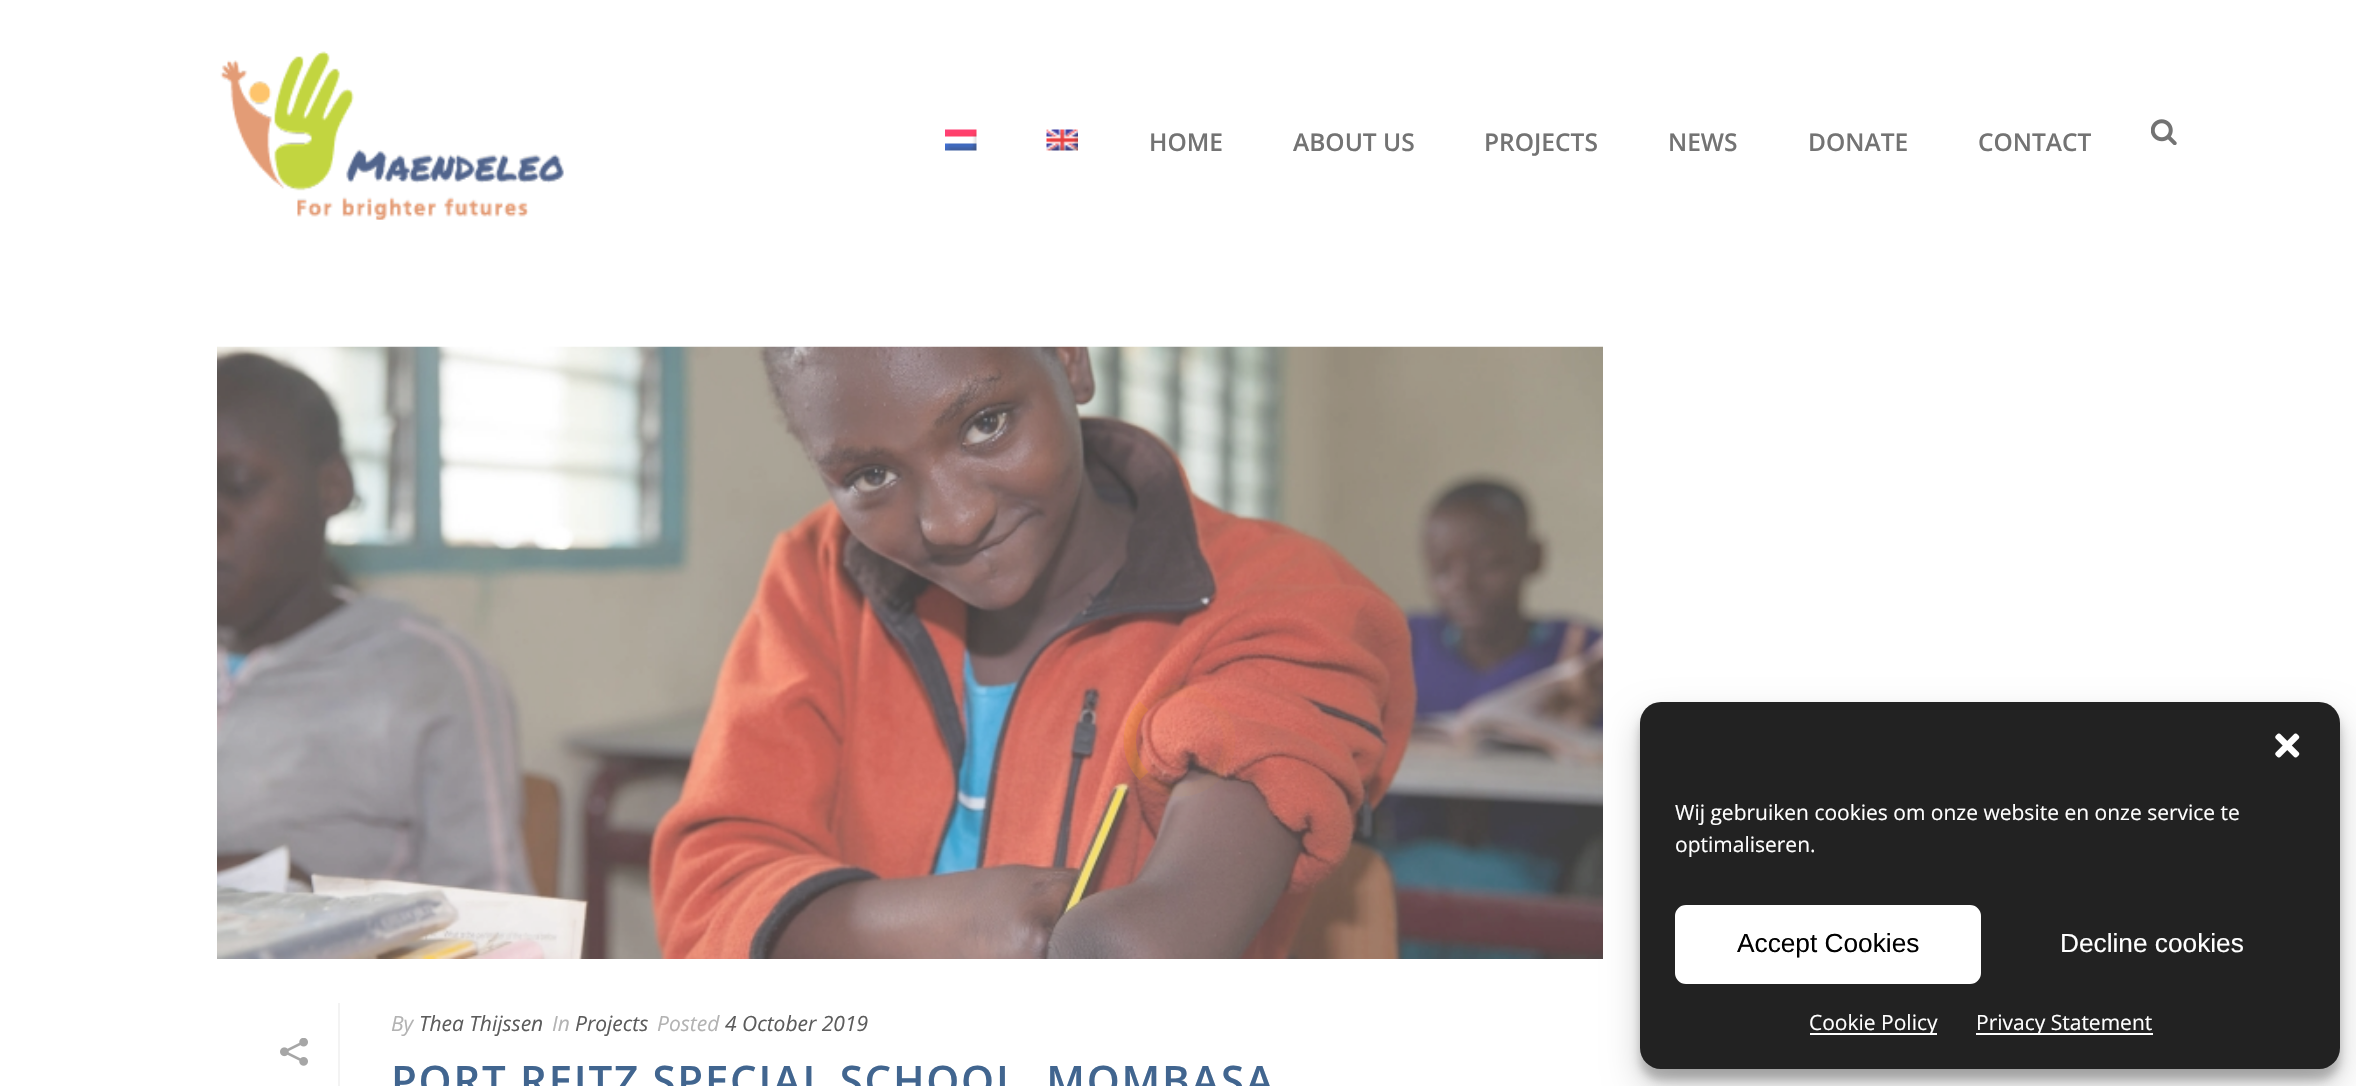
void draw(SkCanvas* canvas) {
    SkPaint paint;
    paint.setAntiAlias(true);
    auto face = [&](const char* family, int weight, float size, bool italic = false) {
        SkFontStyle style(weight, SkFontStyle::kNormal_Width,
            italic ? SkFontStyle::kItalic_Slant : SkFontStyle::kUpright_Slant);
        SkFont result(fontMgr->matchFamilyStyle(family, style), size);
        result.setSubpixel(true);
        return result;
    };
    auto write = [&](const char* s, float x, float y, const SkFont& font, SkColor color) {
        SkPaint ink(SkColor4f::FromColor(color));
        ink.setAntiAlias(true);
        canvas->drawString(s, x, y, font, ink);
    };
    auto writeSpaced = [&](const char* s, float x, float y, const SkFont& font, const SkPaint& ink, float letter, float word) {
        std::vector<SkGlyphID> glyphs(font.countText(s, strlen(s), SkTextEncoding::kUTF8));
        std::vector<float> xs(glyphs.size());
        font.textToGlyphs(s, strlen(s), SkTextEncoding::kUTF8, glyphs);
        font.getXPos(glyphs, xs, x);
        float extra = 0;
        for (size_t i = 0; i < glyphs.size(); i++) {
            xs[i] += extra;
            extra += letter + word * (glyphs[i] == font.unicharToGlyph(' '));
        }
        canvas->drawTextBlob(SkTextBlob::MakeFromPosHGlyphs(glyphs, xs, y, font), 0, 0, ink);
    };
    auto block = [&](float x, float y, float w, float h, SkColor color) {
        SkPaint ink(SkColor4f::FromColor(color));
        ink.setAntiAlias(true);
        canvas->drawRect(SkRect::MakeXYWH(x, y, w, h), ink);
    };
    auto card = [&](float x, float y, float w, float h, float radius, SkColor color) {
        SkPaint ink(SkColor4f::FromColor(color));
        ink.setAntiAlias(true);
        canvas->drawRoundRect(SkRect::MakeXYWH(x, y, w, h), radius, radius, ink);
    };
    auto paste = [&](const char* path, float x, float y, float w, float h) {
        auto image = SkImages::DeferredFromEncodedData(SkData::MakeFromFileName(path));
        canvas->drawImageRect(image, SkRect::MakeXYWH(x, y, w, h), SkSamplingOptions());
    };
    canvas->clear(SK_ColorWHITE);
    paste("pic1.png", 220, 51, 344, 169);
    paste("pic2.png", 945, 129, 32, 22);
    paste("pic3.png", 1046, 129, 32, 22);
    auto kFont1 = face("Open Sans", 600, 24.5f);
    write("HOME", 1149, 151, kFont1, SkColorSetRGB(115, 115, 115));
    write("ABOUT US", 1293, 151, kFont1, SkColorSetRGB(115, 115, 115));
    write("PROJECTS", 1484, 151, kFont1, SkColorSetRGB(115, 115, 115));
    write("NEWS", 1668, 151, kFont1, SkColorSetRGB(115, 115, 115));
    write("DONATE", 1808, 151, kFont1, SkColorSetRGB(115, 115, 115));
    write("CONTACT", 1978, 151, kFont1, SkColorSetRGB(115, 115, 115));
    paste("pic4.png", 2151, 119, 26, 26);
    paste("pic5.png", 217, 346, 1386, 613);
    block(338, 1003, 2, 83, SkColorSetRGB(243, 243, 243));
    paste("pic6.png", 280, 1038, 28, 28);
    auto kFont2 = face("Open Sans", 400, 21, true);
    write("By", 391, 1031, kFont2, SkColorSetRGB(179, 179, 179));
    write("Thea Thijssen", 419, 1031, kFont2, SkColorSetRGB(92, 92, 92));
    write("In", 552, 1031, kFont2, SkColorSetRGB(179, 179, 179));
    write("Projects", 575, 1031, kFont2, SkColorSetRGB(92, 92, 92));
    write("Posted", 657, 1031, kFont2, SkColorSetRGB(179, 179, 179));
    write("4 October 2019", 725, 1031, kFont2, SkColorSetRGB(92, 92, 92));
    auto kFont3 = face("Open Sans", 600, 42);
    paint.setColor(SkColorSetRGB(65, 101, 143));
    writeSpaced("PORT REITZ SPECIAL SCHOOL, MOMBASA", 391, 1096, kFont3, paint, 1.75f, 0);
    paint.setStyle(SkPaint::kStroke_Style);
    paint.setStrokeWidth(12.2f);
    paint.setColor(SkColorSetARGB(13, 248, 159, 24));
    canvas->drawPath(SkPathBuilder().moveTo(1144, 705.5f).cubicTo(1156, 693.5f, 1173, 688.5f, 1189.5f, 692).cubicTo(1199, 693.5f, 1208, 698.5f, 1215, 705.5f).cubicTo(1246, 736.5f, 1223.5f, 790.5f, 1179.5f, 790.5f).cubicTo(1166.5f, 790.5f, 1153.5f, 785, 1144, 776).detach(), paint);
    paint.setColor(SkColorSetARGB(64, 248, 159, 24));
    canvas->drawPath(SkPathBuilder().moveTo(1144, 776).cubicTo(1125, 756.5f, 1125, 724.5f, 1144, 705.5f).detach(), paint);
    paint.setStyle(SkPaint::kFill_Style);
    paint.setColor(SkColorSetARGB(59, 0, 0, 0));
    paint.setMaskFilter(SkMaskFilter::MakeBlur(kNormal_SkBlurStyle, 5));
    canvas->drawRoundRect(SkRect::MakeXYWH(1640, 712, 700, 368), 21, 21, paint);
    paint.setMaskFilter(nullptr);
    paint.setColor(SkColorSetARGB(48, 0, 0, 0));
    paint.setMaskFilter(SkMaskFilter::MakeBlur(kNormal_SkBlurStyle, 17.5f));
    canvas->drawRoundRect(SkRect::MakeXYWH(1640, 719, 700, 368), 21, 21, paint);
    paint.setMaskFilter(nullptr);
    card(1640, 702, 700, 367, 21, SkColorSetRGB(34, 34, 34));
    paste("pic7.png", 2275, 733, 25, 25);
    auto kFont4 = face("Open Sans", 400, 21);
    write("Wij gebruiken cookies om onze website en onze service te", 1675, 820, kFont4, SK_ColorWHITE);
    write("optimaliseren.", 1675, 852, kFont4, SK_ColorWHITE);
    paint.setColor(SK_ColorWHITE);
    canvas->drawRoundRect(SkRect::MakeXYWH(1676, 906, 304, 77), 10, 10, paint);
    paint.setStyle(SkPaint::kStroke_Style);
    paint.setStrokeWidth(2);
    canvas->drawRoundRect(SkRect::MakeXYWH(1676, 906, 304, 77), 10, 10, paint);
    auto kFont5 = face("Liberation Sans", 400, 26.25f);
    write("Accept Cookies", 1737, 952, kFont5, SK_ColorBLACK);
    write("Decline cookies", 2060, 952, kFont5, SK_ColorWHITE);
    block(1810, 1033, 127, 2, SK_ColorWHITE);
    write("Cookie Policy", 1809, 1030, kFont4, SK_ColorWHITE);
    block(1976, 1033, 177, 2, SK_ColorWHITE);
    write("Privacy Statement", 1976, 1030, kFont4, SK_ColorWHITE);
}
